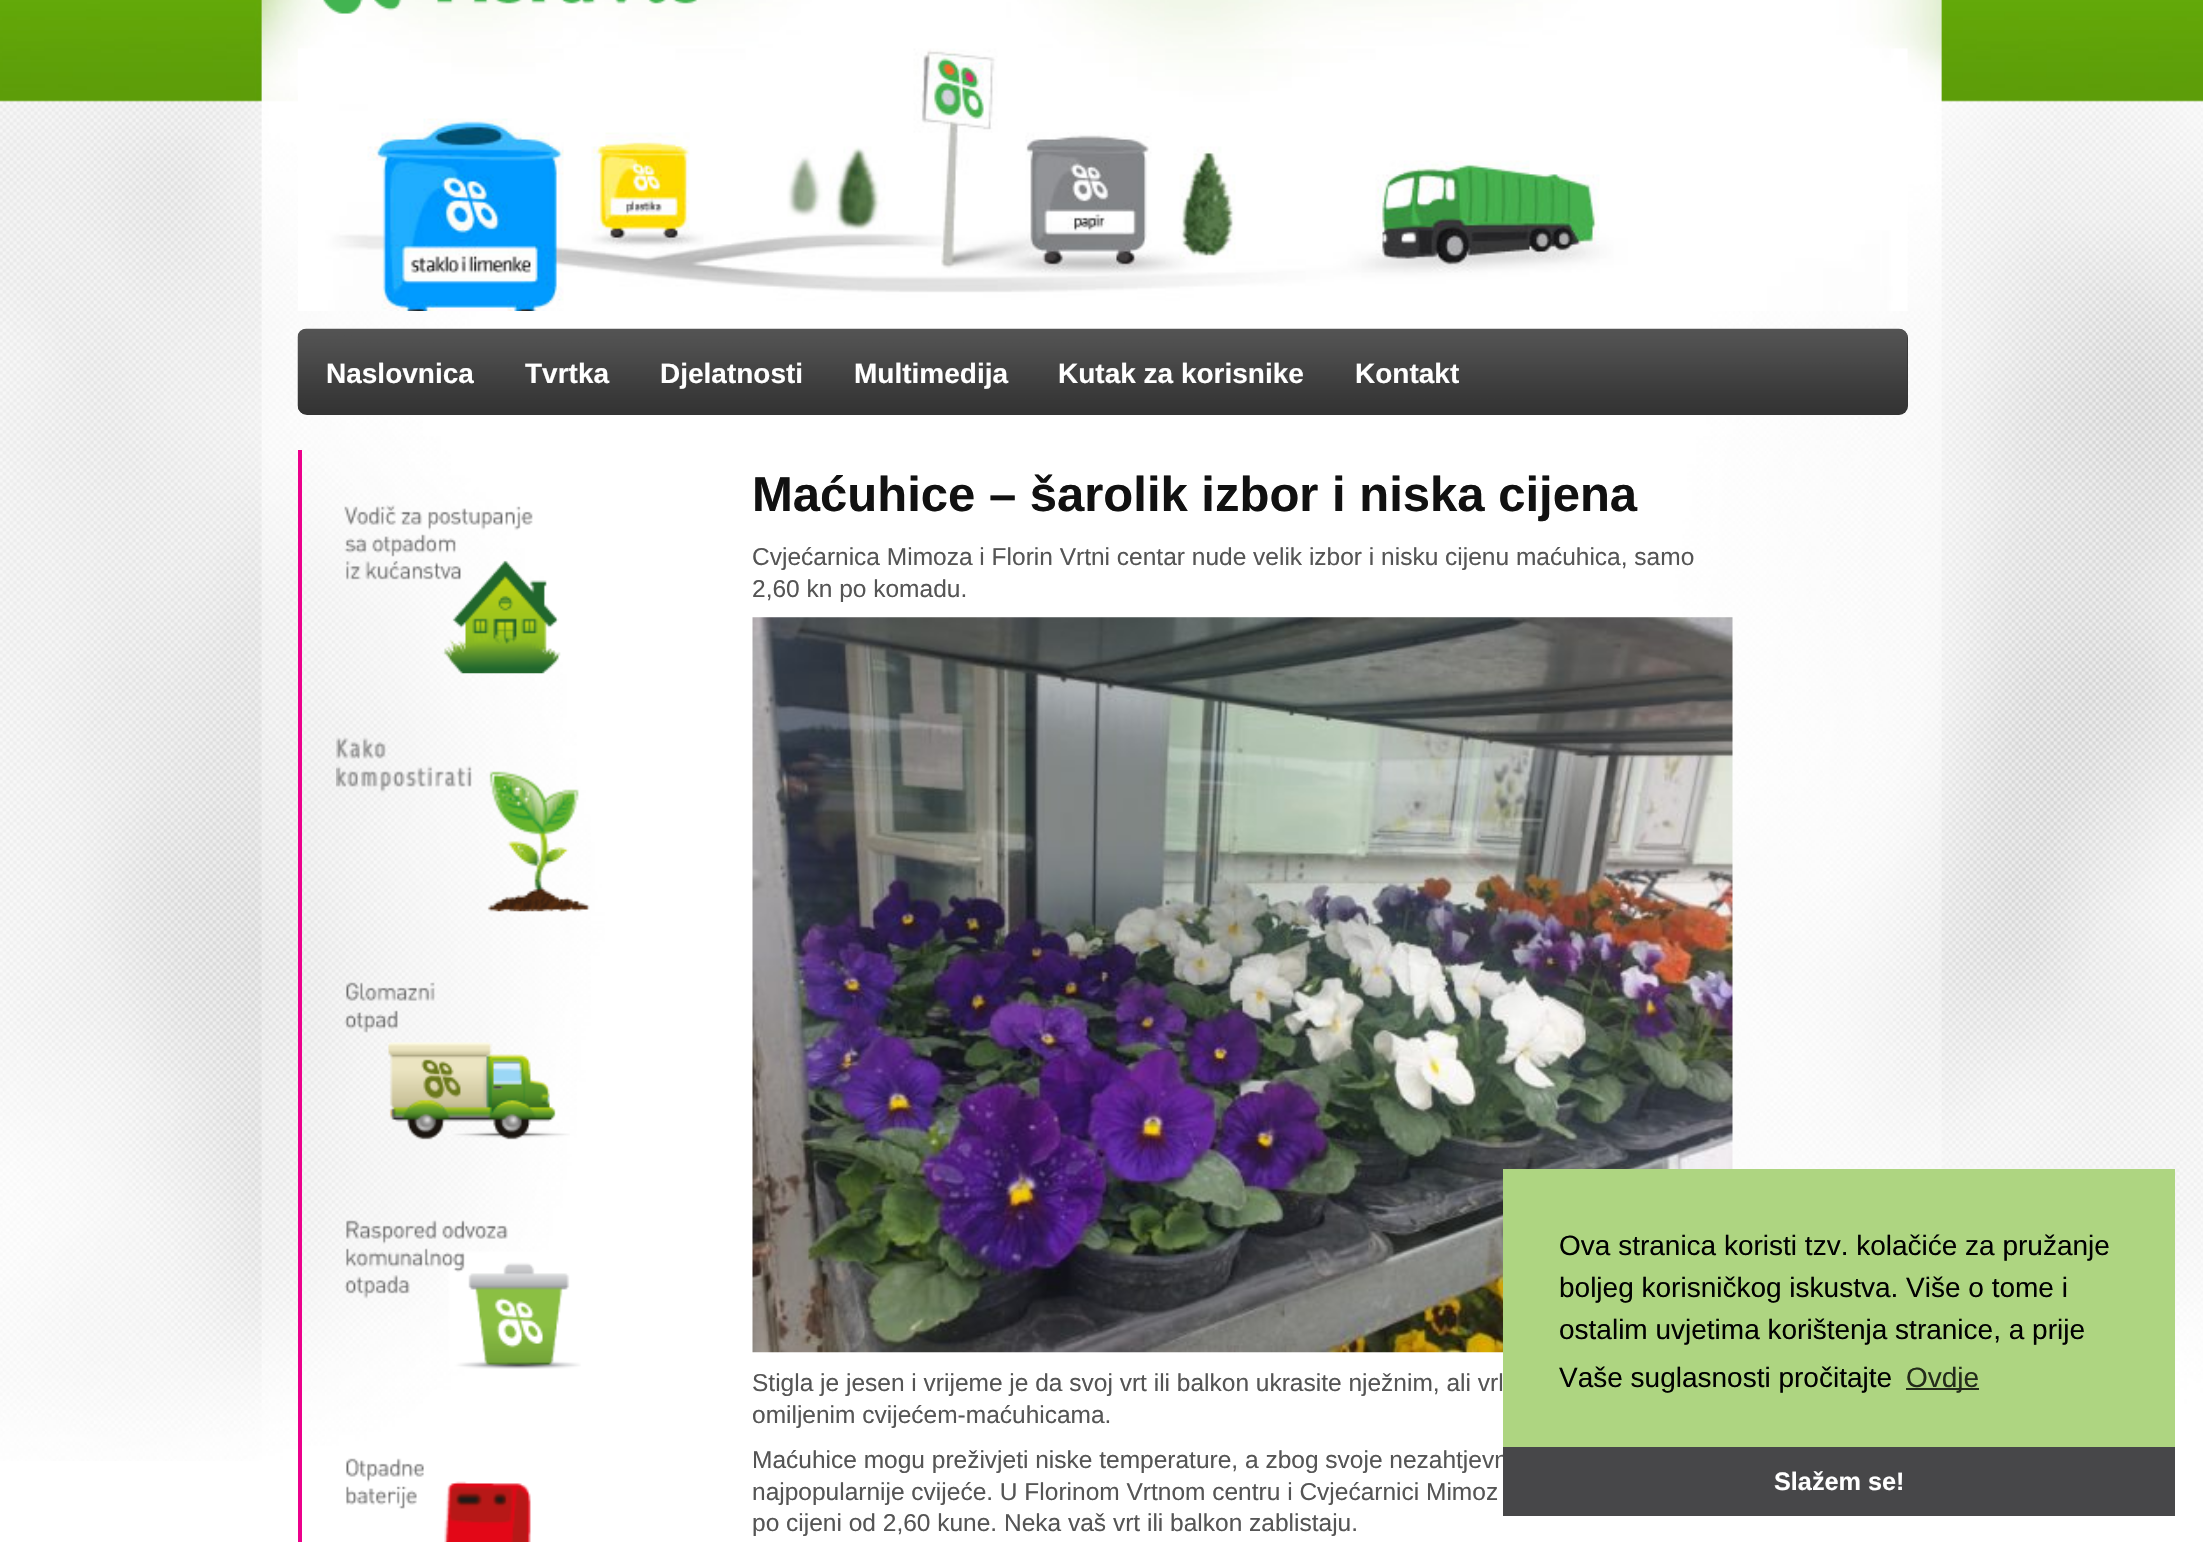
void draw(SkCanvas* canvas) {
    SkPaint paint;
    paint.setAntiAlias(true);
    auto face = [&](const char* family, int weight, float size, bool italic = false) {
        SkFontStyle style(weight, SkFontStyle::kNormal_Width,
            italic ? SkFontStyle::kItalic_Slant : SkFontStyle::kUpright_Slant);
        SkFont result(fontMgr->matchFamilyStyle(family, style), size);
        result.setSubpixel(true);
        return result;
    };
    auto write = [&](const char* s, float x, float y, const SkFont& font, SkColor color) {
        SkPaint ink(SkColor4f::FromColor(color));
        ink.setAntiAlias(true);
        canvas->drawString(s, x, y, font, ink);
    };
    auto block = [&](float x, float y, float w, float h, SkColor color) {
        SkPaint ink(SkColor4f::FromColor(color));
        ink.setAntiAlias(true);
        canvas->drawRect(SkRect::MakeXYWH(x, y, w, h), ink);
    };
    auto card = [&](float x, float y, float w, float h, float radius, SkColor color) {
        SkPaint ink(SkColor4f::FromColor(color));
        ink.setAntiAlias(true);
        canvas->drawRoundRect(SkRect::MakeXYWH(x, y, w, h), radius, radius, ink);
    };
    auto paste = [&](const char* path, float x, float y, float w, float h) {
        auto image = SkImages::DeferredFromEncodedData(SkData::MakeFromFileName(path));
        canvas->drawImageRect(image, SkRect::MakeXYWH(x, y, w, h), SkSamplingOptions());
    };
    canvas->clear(SK_ColorWHITE);
    paste("pic1.png", 0, 0, 2203, 1461);
    paste("pic2.png", 323, 0, 374, 14);
    paste("pic3.png", 298, 48, 1610, 263);
    card(298, 329, 1610, 86, 9, SkColorSetRGB(51, 51, 51));
    paste("pic4.png", 297, 328, 1611, 86);
    auto kFont1 = face("Liberation Sans", 700, 28);
    write("Naslovnica", 326, 383, kFont1, SK_ColorWHITE);
    write("Tvrtka", 525, 383, kFont1, SK_ColorWHITE);
    write("Djelatnosti", 660, 383, kFont1, SK_ColorWHITE);
    write("Multimedija", 854, 383, kFont1, SK_ColorWHITE);
    write("Kutak za korisnike", 1058, 383, kFont1, SK_ColorWHITE);
    write("Kontakt", 1355, 383, kFont1, SK_ColorWHITE);
    block(298, 450, 4, 1092, SkColorSetRGB(236, 0, 140));
    paste("pic5.png", 344, 505, 217, 169);
    paste("pic6.png", 336, 737, 254, 175);
    paste("pic7.png", 344, 982, 226, 158);
    paste("pic8.png", 344, 1220, 237, 149);
    paste("pic9.png", 346, 1458, 185, 84);
    auto kFont2 = face("Liberation Sans", 700, 49);
    write("Maćuhice – šarolik izbor i niska cijena", 752, 511, kFont2, SkColorSetRGB(17, 17, 17));
    auto kFont3 = face("Liberation Sans", 400, 24.5f);
    write("Cvjećarnica Mimoza i Florin Vrtni centar nude velik izbor i nisku cijenu maćuhica, samo", 752, 565, kFont3, SkColorSetRGB(85, 85, 85));
    write("2,60 kn po komadu.", 752, 597, kFont3, SkColorSetRGB(85, 85, 85));
    paste("pic10.png", 752, 617, 981, 736);
    write("Stigla je jesen i vrijeme je da svoj vrt ili balkon ukrasite nježnim, ali vrl", 752, 1391, kFont3, SkColorSetRGB(85, 85, 85));
    write("omiljenim cvijećem-maćuhicama.", 752, 1423, kFont3, SkColorSetRGB(85, 85, 85));
    write("Maćuhice mogu preživjeti niske temperature, a zbog svoje nezahtjevn", 752, 1468, kFont3, SkColorSetRGB(85, 85, 85));
    write("najpopularnije cvijeće. U Florinom Vrtnom centru i Cvjećarnici Mimoz", 752, 1500, kFont3, SkColorSetRGB(85, 85, 85));
    write("po cijeni od 2,60 kune. Neka vaš vrt ili balkon zablistaju.", 752, 1531, kFont3, SkColorSetRGB(85, 85, 85));
    block(1503, 1169, 672, 278, SkColorSetRGB(174, 213, 129));
    auto kFont4 = face("Liberation Sans", 400, 28);
    write("Ova stranica koristi tzv. kolačiće za pružanje", 1559, 1255, kFont4, SK_ColorBLACK);
    write("boljeg korisničkog iskustva. Više o tome i", 1559, 1297, kFont4, SK_ColorBLACK);
    write("ostalim uvjetima korištenja stranice, a prije", 1559, 1339, kFont4, SK_ColorBLACK);
    write("Vaše suglasnosti pročitajte", 1559, 1387, kFont4, SK_ColorBLACK);
    block(1906, 1388, 73, 2, SkColorSetRGB(35, 43, 26));
    write("Ovdje", 1906, 1387, kFont4, SkColorSetRGB(35, 43, 26));
    block(1503, 1447, 672, 69, SkColorSetRGB(71, 71, 73));
    auto kFont5 = face("Liberation Sans", 700, 25.25f);
    write("Slažem se!", 1774, 1490, kFont5, SK_ColorWHITE);
}
